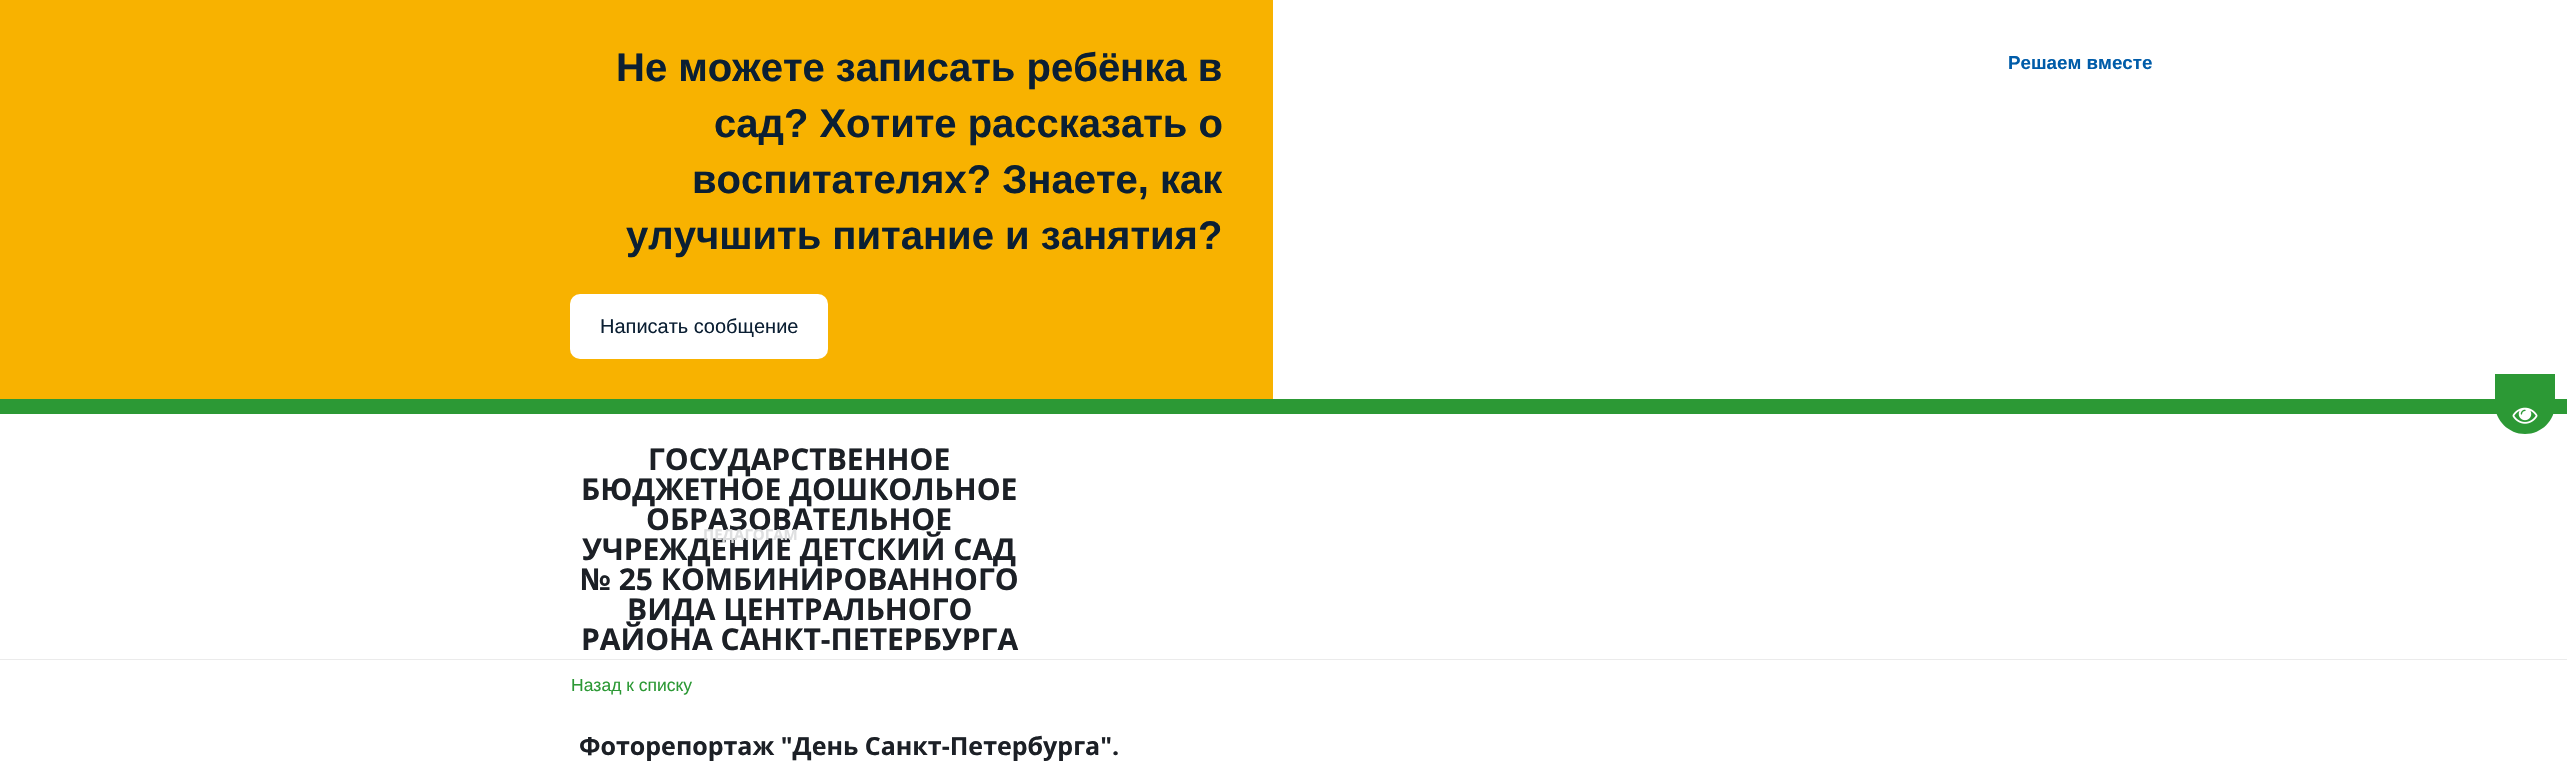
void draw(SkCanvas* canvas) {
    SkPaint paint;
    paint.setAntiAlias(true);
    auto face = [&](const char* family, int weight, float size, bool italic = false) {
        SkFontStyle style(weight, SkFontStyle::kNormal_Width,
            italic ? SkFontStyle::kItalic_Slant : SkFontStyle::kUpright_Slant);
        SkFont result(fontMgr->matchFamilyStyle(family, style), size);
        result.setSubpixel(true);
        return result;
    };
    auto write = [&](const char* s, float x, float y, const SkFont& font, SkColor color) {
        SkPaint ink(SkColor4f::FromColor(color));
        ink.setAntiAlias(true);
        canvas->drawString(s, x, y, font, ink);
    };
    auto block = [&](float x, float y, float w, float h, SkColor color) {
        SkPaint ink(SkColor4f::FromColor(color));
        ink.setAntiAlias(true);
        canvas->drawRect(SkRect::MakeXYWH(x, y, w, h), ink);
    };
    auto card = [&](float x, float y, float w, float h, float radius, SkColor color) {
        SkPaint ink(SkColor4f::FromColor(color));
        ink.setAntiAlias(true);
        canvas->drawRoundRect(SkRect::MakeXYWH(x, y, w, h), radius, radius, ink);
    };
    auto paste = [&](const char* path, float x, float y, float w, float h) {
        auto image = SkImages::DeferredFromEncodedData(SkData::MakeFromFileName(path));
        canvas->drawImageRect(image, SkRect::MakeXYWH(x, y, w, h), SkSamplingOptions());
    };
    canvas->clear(SK_ColorWHITE);
    block(0, 0, 1273, 399, SkColorSetRGB(248, 178, 0));
    auto kFont1 = face("Liberation Sans", 700, 40);
    write("Не можете записать ребёнка в", 616, 81, kFont1, SkColorSetRGB(11, 31, 51));
    write("сад? Хотите рассказать о", 714, 137, kFont1, SkColorSetRGB(11, 31, 51));
    write("воспитателях? Знаете, как", 692, 193, kFont1, SkColorSetRGB(11, 31, 51));
    write("улучшить питание и занятия?", 626, 249, kFont1, SkColorSetRGB(11, 31, 51));
    card(570, 294, 258, 65, 10, SK_ColorWHITE);
    auto kFont2 = face("Liberation Sans", 400, 20);
    write("Написать сообщение", 600, 333, kFont2, SkColorSetRGB(11, 31, 51));
    auto kFont3 = face("Liberation Sans", 700, 18.75f);
    write("Решаем вместе", 2008, 69, kFont3, SkColorSetRGB(0, 92, 169));
    block(0, 399, 2567, 15, SkColorSetRGB(44, 153, 53));
    paint.setColor(SkColorSetRGB(44, 153, 53));
    canvas->drawPath(SkPathBuilder().moveTo(2495, 374).lineTo(2555, 374).lineTo(2555, 404).cubicTo(2555, 420.5f, 2541.5f, 434, 2525, 434).cubicTo(2508.5f, 434, 2495, 420.5f, 2495, 404).close().detach(), paint);
    paste("pic1.png", 2512, 407, 26, 17);
    block(0, 659, 2567, 1, SkColorSetRGB(235, 235, 235));
    auto kFont4 = face("Open Sans", 700, 30);
    write("ГОСУДАРСТВЕННОЕ", 648, 470, kFont4, SkColorSetRGB(28, 32, 38));
    write("БЮДЖЕТНОЕ ДОШКОЛЬНОЕ", 581, 500, kFont4, SkColorSetRGB(28, 32, 38));
    write("ОБРАЗОВАТЕЛЬНОЕ", 646, 530, kFont4, SkColorSetRGB(28, 32, 38));
    write("УЧРЕЖДЕНИЕ ДЕТСКИЙ САД", 582, 560, kFont4, SkColorSetRGB(28, 32, 38));
    write("№ 25 КОМБИНИРОВАННОГО", 580, 590, kFont4, SkColorSetRGB(28, 32, 38));
    write("ВИДА ЦЕНТРАЛЬНОГО", 627, 620, kFont4, SkColorSetRGB(28, 32, 38));
    write("РАЙОНА САНКТ-ПЕТЕРБУРГА", 581, 650, kFont4, SkColorSetRGB(28, 32, 38));
    auto kFont5 = face("Open Sans", 700, 15);
    write("ПЕДАГОГАМ", 703, 540, kFont5, SkColorSetRGB(222, 223, 224));
    auto kFont6 = face("Liberation Sans", 400, 17.5f);
    write("Назад к списку", 571, 691, kFont6, SkColorSetRGB(44, 153, 53));
    auto kFont7 = face("Open Sans", 700, 25);
    write("Фоторепортаж \"День Санкт-Петербурга\".", 579, 755, kFont7, SkColorSetRGB(28, 32, 38));
}
